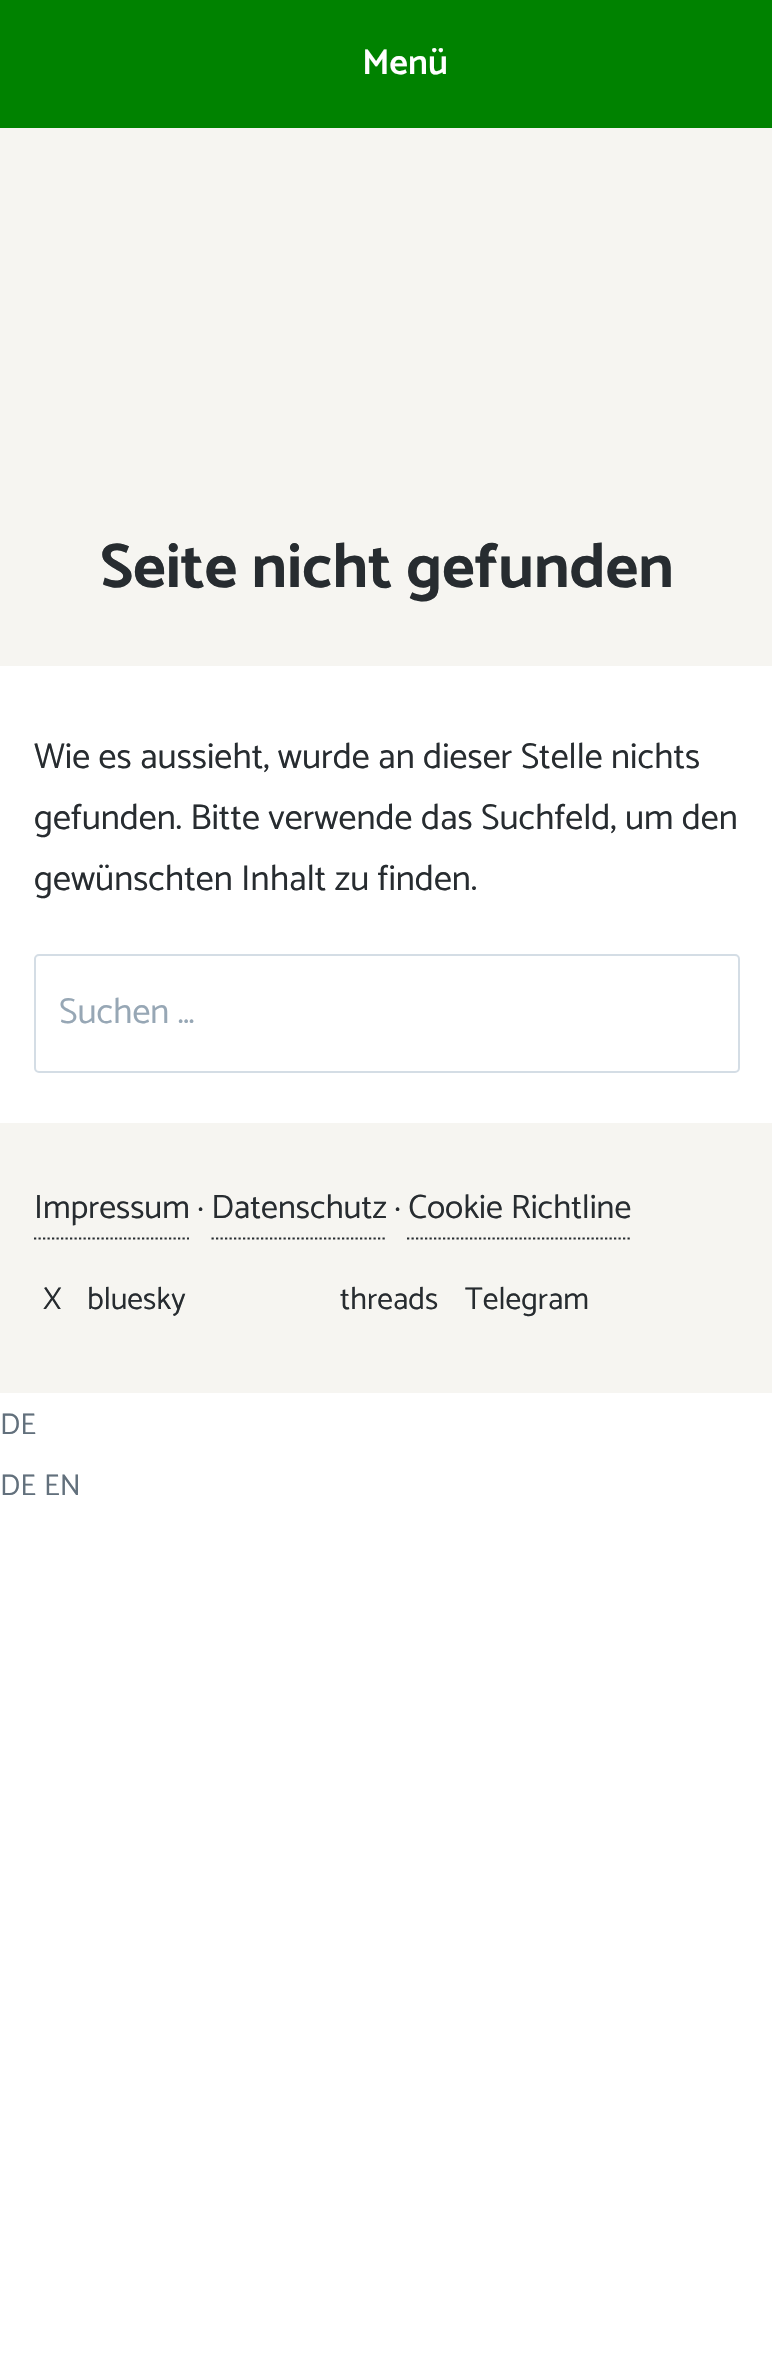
void draw(SkCanvas* canvas) {
    SkPaint paint;
    paint.setAntiAlias(true);
    auto face = [&](const char* family, int weight, float size, bool italic = false) {
        SkFontStyle style(weight, SkFontStyle::kNormal_Width,
            italic ? SkFontStyle::kItalic_Slant : SkFontStyle::kUpright_Slant);
        SkFont result(fontMgr->matchFamilyStyle(family, style), size);
        result.setSubpixel(true);
        return result;
    };
    auto write = [&](const char* s, float x, float y, const SkFont& font, SkColor color) {
        SkPaint ink(SkColor4f::FromColor(color));
        ink.setAntiAlias(true);
        canvas->drawString(s, x, y, font, ink);
    };
    auto block = [&](float x, float y, float w, float h, SkColor color) {
        SkPaint ink(SkColor4f::FromColor(color));
        ink.setAntiAlias(true);
        canvas->drawRect(SkRect::MakeXYWH(x, y, w, h), ink);
    };
    canvas->clear(SK_ColorWHITE);
    block(0, 128, 772, 538, SkColorSetRGB(246, 245, 241));
    block(0, 0, 772, 128, SkColorSetRGB(0, 130, 0));
    auto kFont1 = face("Catamaran", 600, 36);
    write("Menü", 362, 74, kFont1, SK_ColorWHITE);
    auto kFont2 = face("Catamaran", 700, 63);
    write("Seite nicht gefunden", 100, 587, kFont2, SkColorSetRGB(39, 44, 48));
    auto kFont3 = face("Catamaran", 400, 36);
    write("Wie es aussieht, wurde an dieser Stelle nichts", 34, 768, kFont3, SkColorSetRGB(39, 44, 48));
    write("gefunden. Bitte verwende das Suchfeld, um den", 34, 829, kFont3, SkColorSetRGB(39, 44, 48));
    write("gewünschten Inhalt zu finden.", 34, 890, kFont3, SkColorSetRGB(39, 44, 48));
    paint.setStyle(SkPaint::kStroke_Style);
    paint.setStrokeWidth(2);
    paint.setColor(SkColorSetRGB(212, 221, 229));
    canvas->drawRoundRect(SkRect::MakeXYWH(35, 955, 704, 117), 4, 4, paint);
    write("Suchen …", 59, 1023, kFont3, SkColorSetRGB(151, 167, 181));
    block(0, 1123, 772, 270, SkColorSetRGB(246, 245, 241));
    auto kFont4 = face("Catamaran", 400, 33.75f);
    write("Impressum · Datenschutz · Cookie Richtline", 34, 1218, kFont4, SkColorSetRGB(39, 44, 48));
    paint.setStrokeWidth(2.2f);
    paint.setColor(SkColorSetRGB(39, 44, 48));
    paint.setPathEffect(SkDashPathEffect::Make({{2.25f, 2.25f}}, 0));
    canvas->drawPath(SkPathBuilder().moveTo(34, 1238.5f).lineTo(189, 1238.5f).detach(), paint);
    paint.setPathEffect(nullptr);
    paint.setPathEffect(SkDashPathEffect::Make({{2.25f, 2.25f}}, 0));
    canvas->drawPath(SkPathBuilder().moveTo(211.5f, 1238.5f).lineTo(387, 1238.5f).detach(), paint);
    paint.setPathEffect(nullptr);
    paint.setPathEffect(SkDashPathEffect::Make({{2.25f, 2.25f}}, 0));
    canvas->drawPath(SkPathBuilder().moveTo(407, 1238.5f).lineTo(630, 1238.5f).detach(), paint);
    paint.setPathEffect(nullptr);
    auto kFont5 = face("Catamaran", 400, 31.5f);
    write("X", 43, 1309, kFont5, SkColorSetRGB(39, 44, 48));
    write("bluesky", 87, 1309, kFont5, SkColorSetRGB(39, 44, 48));
    write("threads", 340, 1309, kFont5, SkColorSetRGB(39, 44, 48));
    write("Telegram", 465, 1309, kFont5, SkColorSetRGB(39, 44, 48));
    auto kFont6 = face("Catamaran", 400, 30);
    write("DE", 0, 1434, kFont6, SkColorSetRGB(98, 112, 124));
    write("DE", 0, 1495, kFont6, SkColorSetRGB(98, 112, 124));
    write("EN", 44, 1495, kFont6, SkColorSetRGB(98, 112, 124));
}
